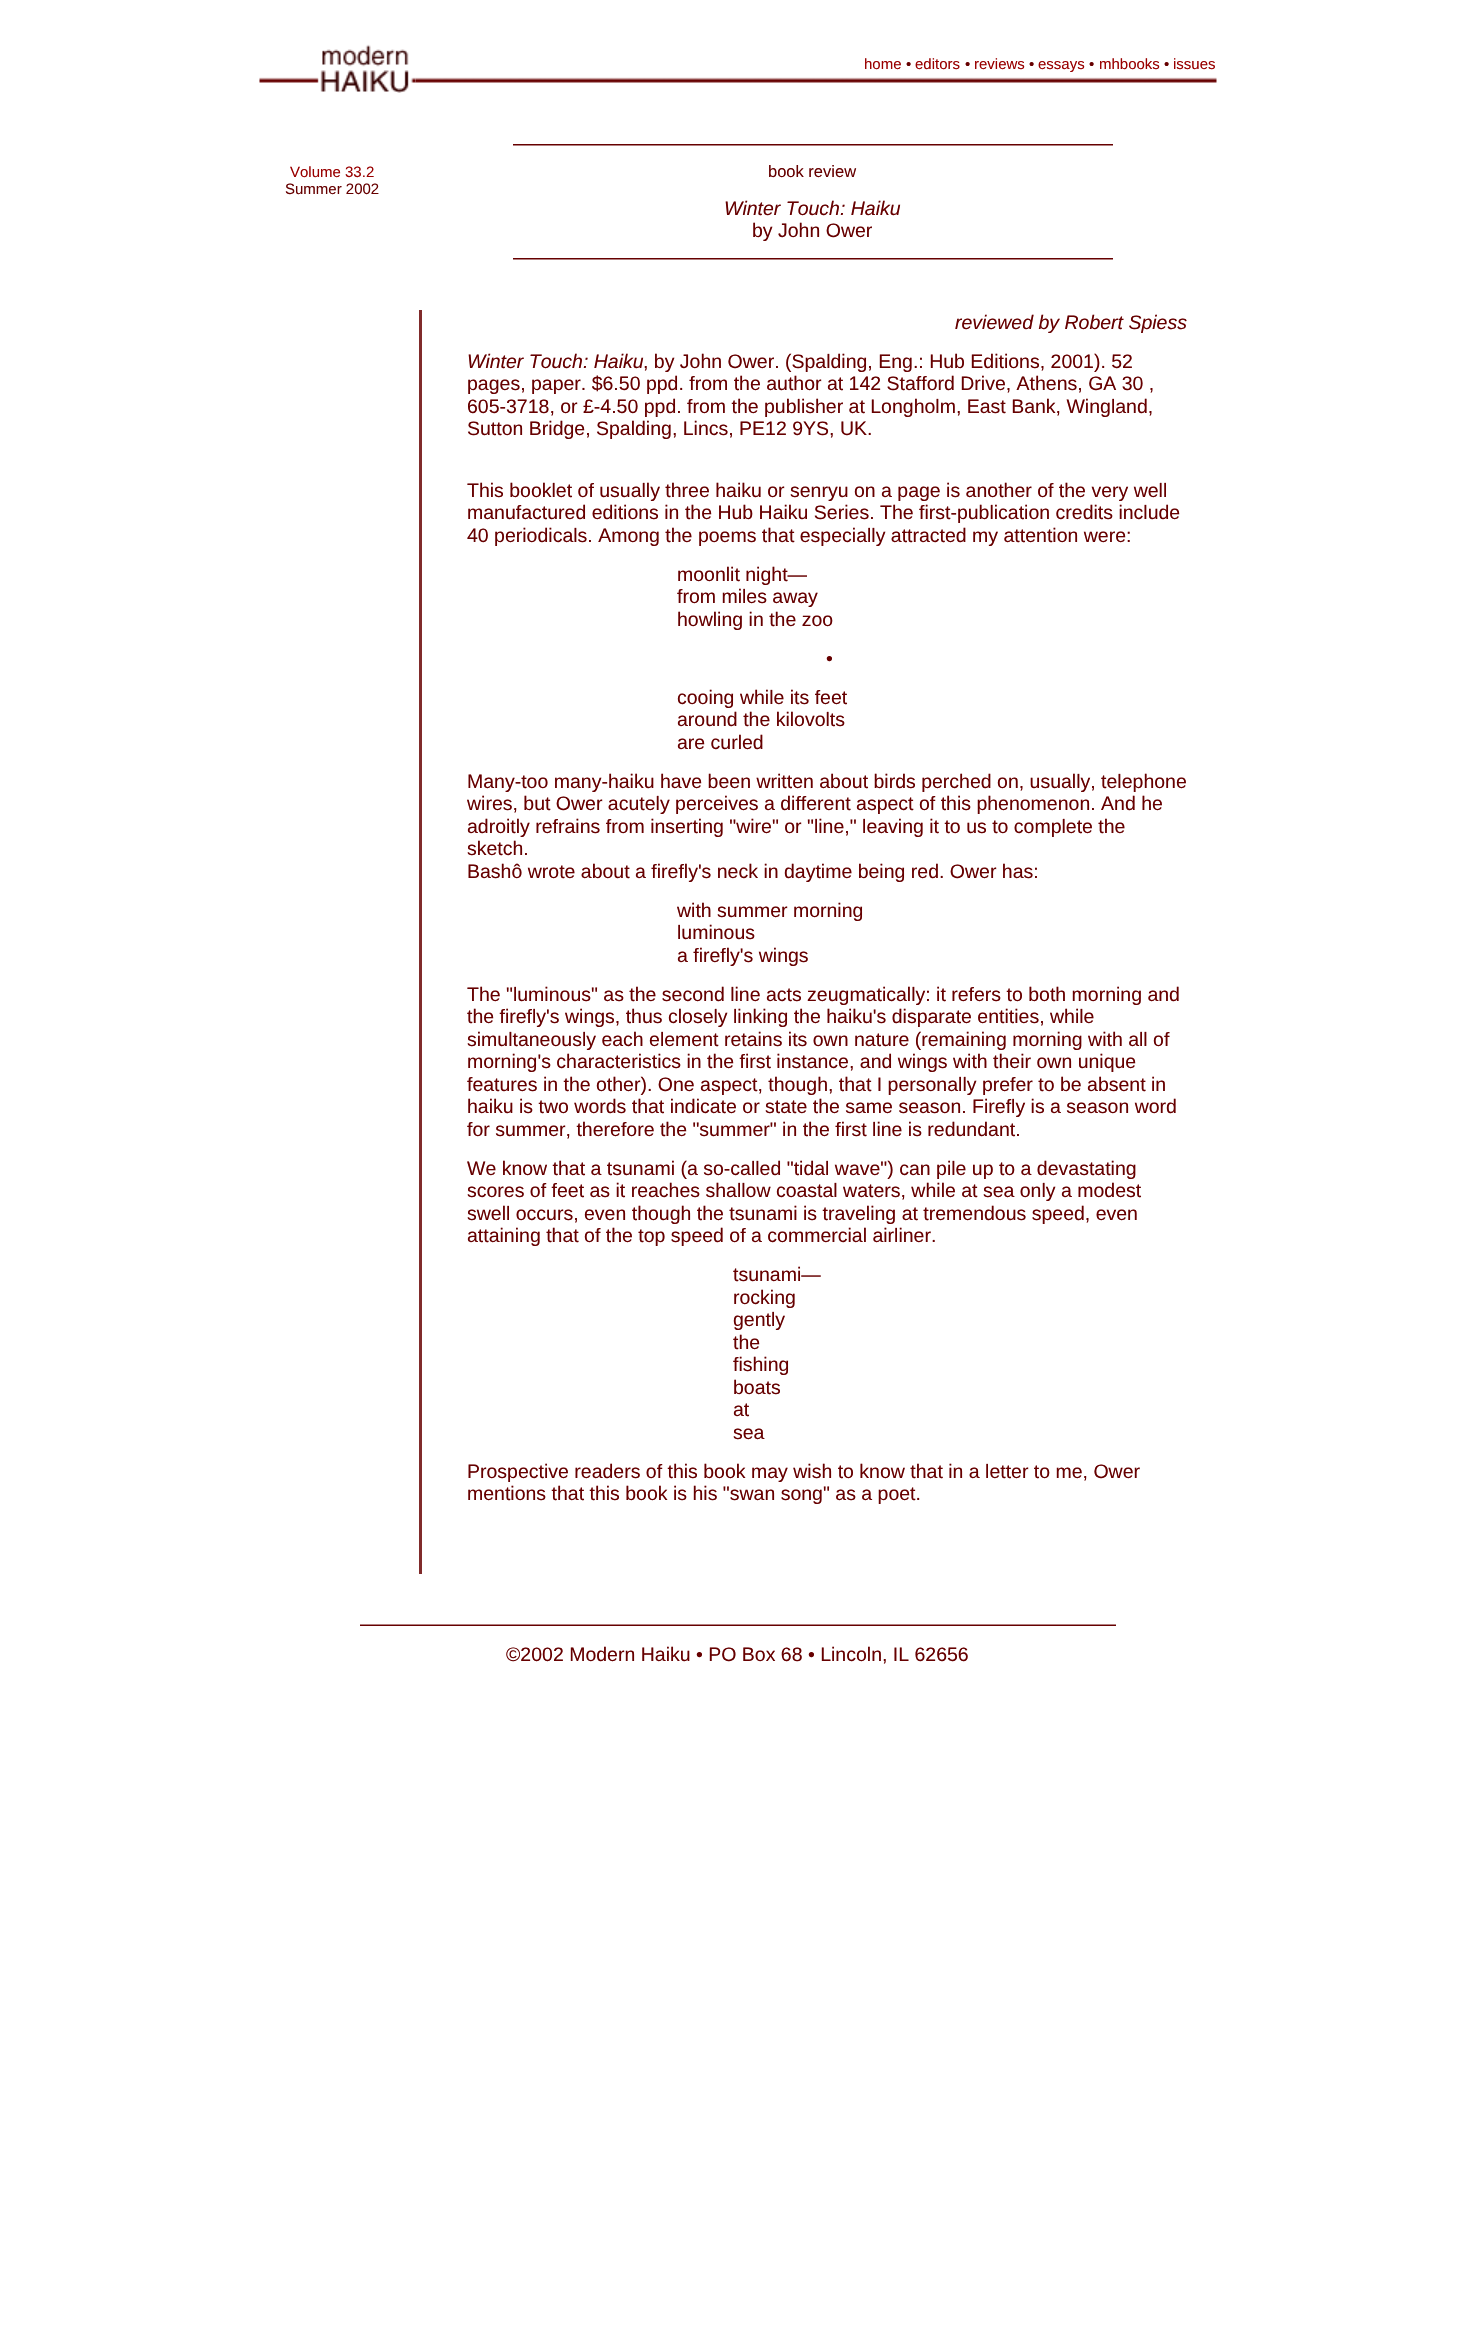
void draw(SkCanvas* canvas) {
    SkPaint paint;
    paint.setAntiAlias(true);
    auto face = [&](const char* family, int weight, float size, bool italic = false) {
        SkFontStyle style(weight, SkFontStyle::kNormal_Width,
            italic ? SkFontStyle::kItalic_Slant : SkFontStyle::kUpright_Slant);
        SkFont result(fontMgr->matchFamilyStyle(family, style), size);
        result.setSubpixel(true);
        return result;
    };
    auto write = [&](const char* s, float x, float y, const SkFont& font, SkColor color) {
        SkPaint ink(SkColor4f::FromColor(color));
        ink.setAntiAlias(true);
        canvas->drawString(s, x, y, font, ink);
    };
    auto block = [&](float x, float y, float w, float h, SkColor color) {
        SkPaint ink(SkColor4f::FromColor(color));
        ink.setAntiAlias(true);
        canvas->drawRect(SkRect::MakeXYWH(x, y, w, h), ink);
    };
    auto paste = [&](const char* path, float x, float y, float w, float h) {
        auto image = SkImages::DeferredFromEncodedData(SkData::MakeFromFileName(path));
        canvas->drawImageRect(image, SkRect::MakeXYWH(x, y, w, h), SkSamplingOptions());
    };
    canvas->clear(SK_ColorWHITE);
    paste("pic1.png", 259, 44, 157, 49);
    auto kFont1 = face("Liberation Sans", 400, 15);
    write("home", 864, 69, kFont1, SkColorSetRGB(153, 0, 0));
    write("•", 906, 69, kFont1, SkColorSetRGB(102, 0, 0));
    write("editors", 915, 69, kFont1, SkColorSetRGB(153, 0, 0));
    write("•", 965, 69, kFont1, SkColorSetRGB(102, 0, 0));
    write("reviews", 974, 69, kFont1, SkColorSetRGB(153, 0, 0));
    write("•", 1029, 69, kFont1, SkColorSetRGB(102, 0, 0));
    write("essays", 1038, 69, kFont1, SkColorSetRGB(153, 0, 0));
    write("•", 1089, 69, kFont1, SkColorSetRGB(102, 0, 0));
    write("mhbooks", 1099, 69, kFont1, SkColorSetRGB(153, 0, 0));
    write("•", 1164, 69, kFont1, SkColorSetRGB(102, 0, 0));
    write("issues", 1173, 69, kFont1, SkColorSetRGB(153, 0, 0));
    paste("pic2.png", 415, 77, 802, 6);
    write("Volume 33.2", 290, 177, kFont1, SkColorSetRGB(153, 0, 0));
    write("Summer 2002", 285, 194, kFont1, SkColorSetRGB(102, 0, 0));
    paste("pic3.png", 513, 144, 600, 2);
    auto kFont2 = face("Liberation Sans", 400, 16.5f);
    write("book review", 768, 177, kFont2, SkColorSetRGB(102, 0, 0));
    auto kFont3 = face("Liberation Sans", 400, 19.5f, true);
    write("Winter Touch: Haiku", 724, 215, kFont3, SkColorSetRGB(102, 0, 0));
    auto kFont4 = face("Liberation Sans", 400, 19.5f);
    write("by John Ower", 752, 237, kFont4, SkColorSetRGB(102, 0, 0));
    paste("pic3.png", 513, 258, 600, 2);
    block(419, 310, 3, 1264, SkColorSetRGB(128, 43, 43));
    write("reviewed by Robert Spiess", 955, 329, kFont3, SkColorSetRGB(102, 0, 0));
    write("Winter Touch: Haiku", 467, 368, kFont3, SkColorSetRGB(102, 0, 0));
    write(", by John Ower. (Spalding, Eng.: Hub Editions, 2001). 52", 643, 368, kFont4, SkColorSetRGB(102, 0, 0));
    write("pages, paper. $6.50 ppd. from the author at 142 Stafford Drive, Athens, GA 30 ,", 467, 390, kFont4, SkColorSetRGB(102, 0, 0));
    write("605-3718, or £-4.50 ppd. from the publisher at Longholm, East Bank, Wingland,", 467, 413, kFont4, SkColorSetRGB(102, 0, 0));
    write("Sutton Bridge, Spalding, Lincs, PE12 9YS, UK.", 467, 435, kFont4, SkColorSetRGB(102, 0, 0));
    write("This booklet of usually three haiku or senryu on a page is another of the very well", 467, 497, kFont4, SkColorSetRGB(102, 0, 0));
    write("manufactured editions in the Hub Haiku Series. The first-publication credits include", 467, 519, kFont4, SkColorSetRGB(102, 0, 0));
    write("40 periodicals. Among the poems that especially attracted my attention were:", 467, 542, kFont4, SkColorSetRGB(102, 0, 0));
    write("moonlit night—", 677, 581, kFont4, SkColorSetRGB(102, 0, 0));
    write("from miles away", 677, 603, kFont4, SkColorSetRGB(102, 0, 0));
    write("howling in the zoo", 677, 626, kFont4, SkColorSetRGB(102, 0, 0));
    write("•", 826, 665, kFont4, SkColorSetRGB(102, 0, 0));
    write("cooing while its feet", 677, 704, kFont4, SkColorSetRGB(102, 0, 0));
    write("around the kilovolts", 677, 726, kFont4, SkColorSetRGB(102, 0, 0));
    write("are curled", 677, 749, kFont4, SkColorSetRGB(102, 0, 0));
    write("Many-too many-haiku have been written about birds perched on, usually, telephone", 467, 788, kFont4, SkColorSetRGB(102, 0, 0));
    write("wires, but Ower acutely perceives a different aspect of this phenomenon. And he", 467, 810, kFont4, SkColorSetRGB(102, 0, 0));
    write("adroitly refrains from inserting \"wire\" or \"line,\" leaving it to us to complete the", 467, 833, kFont4, SkColorSetRGB(102, 0, 0));
    write("sketch.", 467, 855, kFont4, SkColorSetRGB(102, 0, 0));
    write("Bashô wrote about a firefly's neck in daytime being red. Ower has:", 467, 878, kFont4, SkColorSetRGB(102, 0, 0));
    write("with summer morning", 677, 917, kFont4, SkColorSetRGB(102, 0, 0));
    write("luminous", 677, 939, kFont4, SkColorSetRGB(102, 0, 0));
    write("a firefly's wings", 677, 962, kFont4, SkColorSetRGB(102, 0, 0));
    write("The \"luminous\" as the second line acts zeugmatically: it refers to both morning and", 467, 1001, kFont4, SkColorSetRGB(102, 0, 0));
    write("the firefly's wings, thus closely linking the haiku's disparate entities, while", 467, 1023, kFont4, SkColorSetRGB(102, 0, 0));
    write("simultaneously each element retains its own nature (remaining morning with all of", 467, 1046, kFont4, SkColorSetRGB(102, 0, 0));
    write("morning's characteristics in the first instance, and wings with their own unique", 467, 1068, kFont4, SkColorSetRGB(102, 0, 0));
    write("features in the other). One aspect, though, that I personally prefer to be absent in", 467, 1091, kFont4, SkColorSetRGB(102, 0, 0));
    write("haiku is two words that indicate or state the same season. Firefly is a season word", 467, 1113, kFont4, SkColorSetRGB(102, 0, 0));
    write("for summer, therefore the \"summer\" in the first line is redundant.", 467, 1136, kFont4, SkColorSetRGB(102, 0, 0));
    write("We know that a tsunami (a so-called \"tidal wave\") can pile up to a devastating", 467, 1175, kFont4, SkColorSetRGB(102, 0, 0));
    write("scores of feet as it reaches shallow coastal waters, while at sea only a modest", 467, 1197, kFont4, SkColorSetRGB(102, 0, 0));
    write("swell occurs, even though the tsunami is traveling at tremendous speed, even", 467, 1220, kFont4, SkColorSetRGB(102, 0, 0));
    write("attaining that of the top speed of a commercial airliner.", 467, 1242, kFont4, SkColorSetRGB(102, 0, 0));
    write("tsunami—", 733, 1281, kFont4, SkColorSetRGB(102, 0, 0));
    write("rocking", 733, 1304, kFont4, SkColorSetRGB(102, 0, 0));
    write("gently", 733, 1326, kFont4, SkColorSetRGB(102, 0, 0));
    write("the", 733, 1349, kFont4, SkColorSetRGB(102, 0, 0));
    write("fishing", 733, 1371, kFont4, SkColorSetRGB(102, 0, 0));
    write("boats", 733, 1394, kFont4, SkColorSetRGB(102, 0, 0));
    write("at", 733, 1416, kFont4, SkColorSetRGB(102, 0, 0));
    write("sea", 733, 1439, kFont4, SkColorSetRGB(102, 0, 0));
    write("Prospective readers of this book may wish to know that in a letter to me, Ower", 467, 1478, kFont4, SkColorSetRGB(102, 0, 0));
    write("mentions that this book is his \"swan song\" as a poet.", 467, 1500, kFont4, SkColorSetRGB(102, 0, 0));
    paste("pic4.png", 360, 1624, 756, 2);
    write("©2002 Modern Haiku • PO Box 68 • Lincoln, IL 62656", 506, 1661, kFont4, SkColorSetRGB(102, 0, 0));
}
